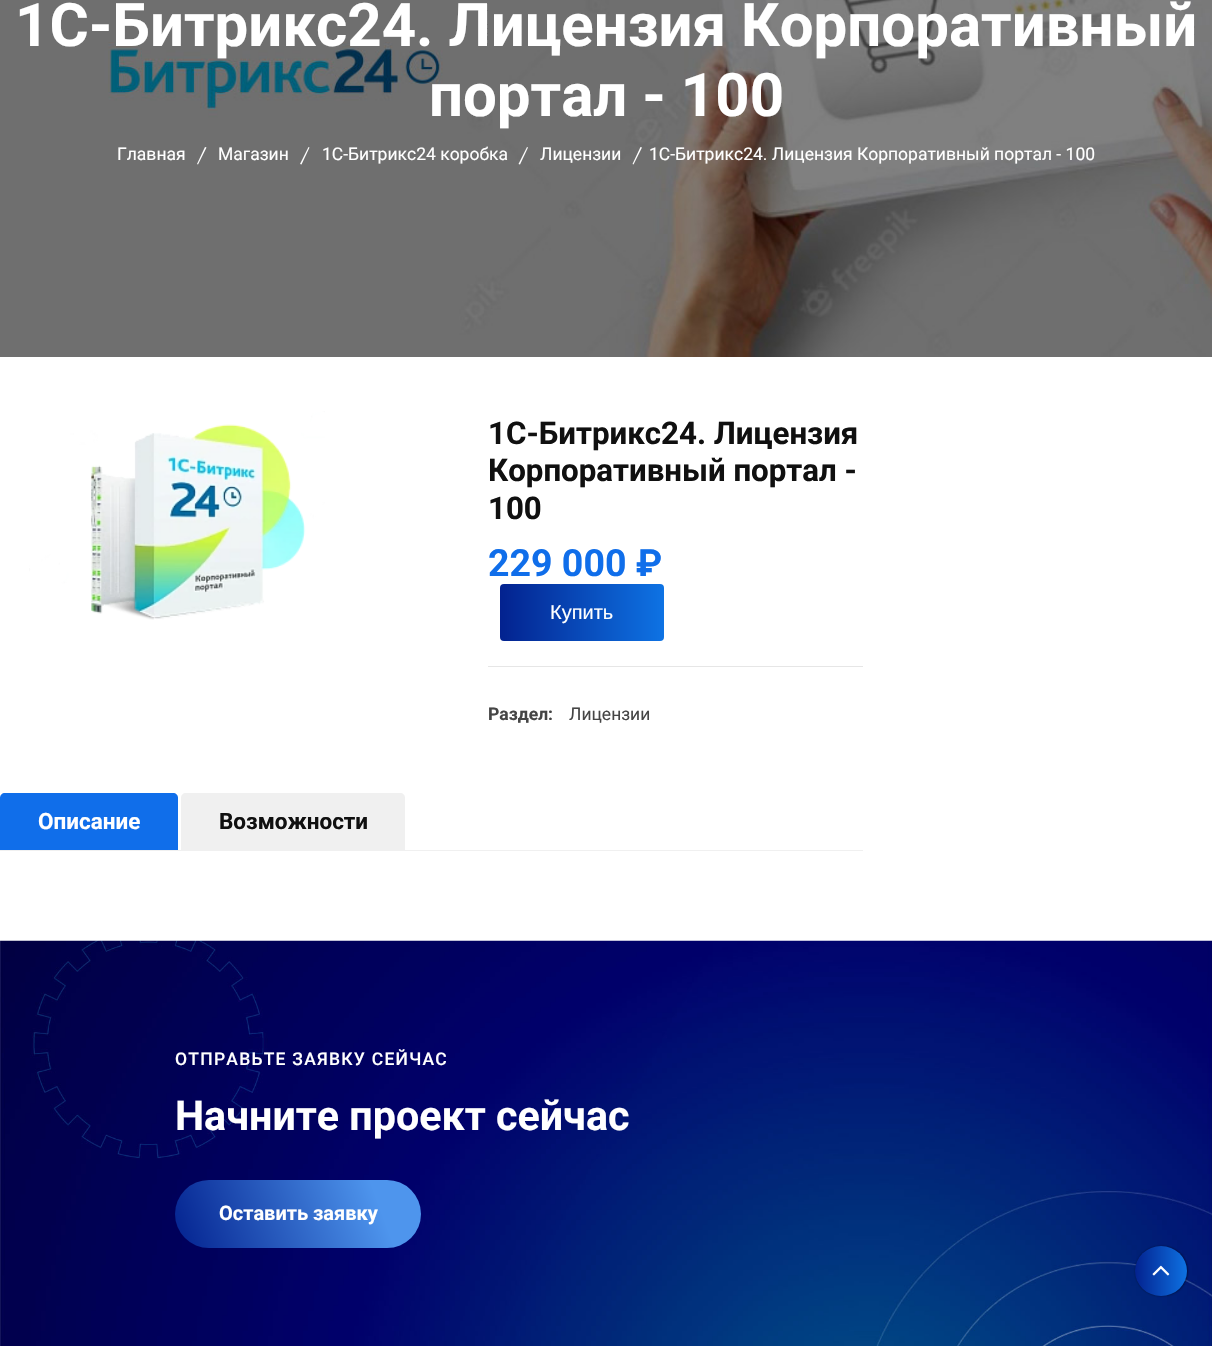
void draw(SkCanvas* canvas) {
    SkPaint paint;
    paint.setAntiAlias(true);
    auto face = [&](const char* family, int weight, float size, bool italic = false) {
        SkFontStyle style(weight, SkFontStyle::kNormal_Width,
            italic ? SkFontStyle::kItalic_Slant : SkFontStyle::kUpright_Slant);
        SkFont result(fontMgr->matchFamilyStyle(family, style), size);
        result.setSubpixel(true);
        return result;
    };
    auto write = [&](const char* s, float x, float y, const SkFont& font, SkColor color) {
        SkPaint ink(SkColor4f::FromColor(color));
        ink.setAntiAlias(true);
        canvas->drawString(s, x, y, font, ink);
    };
    auto writeSpaced = [&](const char* s, float x, float y, const SkFont& font, const SkPaint& ink, float letter, float word) {
        std::vector<SkGlyphID> glyphs(font.countText(s, strlen(s), SkTextEncoding::kUTF8));
        std::vector<float> xs(glyphs.size());
        font.textToGlyphs(s, strlen(s), SkTextEncoding::kUTF8, glyphs);
        font.getXPos(glyphs, xs, x);
        float extra = 0;
        for (size_t i = 0; i < glyphs.size(); i++) {
            xs[i] += extra;
            extra += letter + word * (glyphs[i] == font.unicharToGlyph(' '));
        }
        canvas->drawTextBlob(SkTextBlob::MakeFromPosHGlyphs(glyphs, xs, y, font), 0, 0, ink);
    };
    auto block = [&](float x, float y, float w, float h, SkColor color) {
        SkPaint ink(SkColor4f::FromColor(color));
        ink.setAntiAlias(true);
        canvas->drawRect(SkRect::MakeXYWH(x, y, w, h), ink);
    };
    auto paste = [&](const char* path, float x, float y, float w, float h) {
        auto image = SkImages::DeferredFromEncodedData(SkData::MakeFromFileName(path));
        canvas->drawImageRect(image, SkRect::MakeXYWH(x, y, w, h), SkSamplingOptions());
    };
    canvas->clear(SK_ColorWHITE);
    paste("pic1.png", 0, 0, 1212, 357);
    auto kFont1 = face("Roboto", 700, 60);
    write("1С-Битрикс24. Лицензия Корпоративный", 15, 46, kFont1, SK_ColorWHITE);
    write("портал - 100", 429, 116, kFont1, SK_ColorWHITE);
    auto kFont2 = face("Roboto", 400, 17.5f);
    write("Главная", 117, 160, kFont2, SK_ColorWHITE);
    paint.setColor(SK_ColorWHITE);
    canvas->drawPath(SkPathBuilder().moveTo(205, 147).lineTo(206.5f, 147.5f).lineTo(198, 164.5f).lineTo(197, 164).close().detach(), paint);
    write("Магазин", 218, 160, kFont2, SK_ColorWHITE);
    canvas->drawPath(SkPathBuilder().moveTo(308.5f, 147).lineTo(309.5f, 147.5f).lineTo(301.5f, 164.5f).lineTo(300, 164).close().detach(), paint);
    write("1С-Битрикс24 коробка", 322, 160, kFont2, SK_ColorWHITE);
    canvas->drawPath(SkPathBuilder().moveTo(527, 147).lineTo(528, 147.5f).lineTo(520, 164.5f).lineTo(518.5f, 164).close().detach(), paint);
    write("Лицензии", 540, 160, kFont2, SK_ColorWHITE);
    canvas->drawPath(SkPathBuilder().moveTo(640.5f, 147).lineTo(642, 147.5f).lineTo(633.5f, 164.5f).lineTo(632.5f, 164).close().detach(), paint);
    write("1С-Битрикс24. Лицензия Корпоративный портал - 100", 649, 160, kFont2, SK_ColorWHITE);
    paste("pic2.png", 29, 411, 296, 209);
    auto kFont3 = face("Roboto", 700, 31.25f);
    write("1С-Битрикс24. Лицензия", 488, 444, kFont3, SkColorSetRGB(16, 16, 16));
    write("Корпоративный портал -", 488, 481, kFont3, SkColorSetRGB(16, 16, 16));
    write("100", 488, 519, kFont3, SkColorSetRGB(16, 16, 16));
    auto kFont4 = face("Roboto", 700, 37.5f);
    write("229 000 ₽", 488, 576, kFont4, SkColorSetRGB(16, 110, 234));
    {
        const SkColor colors[] = {SkColorSetRGB(3, 34, 143), SkColorSetRGB(14, 115, 228)};
        const float stops[] = {0, 1};
        const SkPoint ends[] = {{500, 613}, {664, 613}};
        paint.setShader(SkGradientShader::MakeLinear(ends, colors, stops, 2, SkTileMode::kClamp));
        paint.setAlpha(255);
    }
    canvas->drawRoundRect(SkRect::MakeXYWH(500, 584, 164, 57), 4, 4, paint);
    auto kFont5 = face("Liberation Sans", 400, 20);
    write("Купить", 550, 619, kFont5, SK_ColorWHITE);
    block(488, 666, 375, 1, SkColorSetRGB(230, 230, 230));
    auto kFont6 = face("Roboto", 700, 17.5f);
    write("Раздел:", 488, 720, kFont6, SkColorSetRGB(69, 69, 69));
    write("Лицензии", 569, 720, kFont2, SkColorSetRGB(69, 69, 69));
    block(0, 850, 863, 1, SkColorSetRGB(240, 240, 240));
    paint.setShader(nullptr);
    paint.setColor(SkColorSetRGB(16, 110, 234));
    canvas->drawPath(SkPathBuilder().moveTo(5, 793).lineTo(173, 793).cubicTo(176, 793, 178, 795, 178, 798).lineTo(178, 850).lineTo(0, 850).lineTo(0, 798).cubicTo(0, 795, 2, 793, 5, 793).close().detach(), paint);
    auto kFont7 = face("Roboto", 700, 22.5f);
    write("Описание", 38, 829, kFont7, SK_ColorWHITE);
    paint.setColor(SkColorSetRGB(240, 240, 240));
    canvas->drawPath(SkPathBuilder().moveTo(186, 793).lineTo(400, 793).cubicTo(403, 793, 405, 795, 405, 798).lineTo(405, 850).lineTo(181, 850).lineTo(181, 798).cubicTo(181, 795, 183, 793, 186, 793).close().detach(), paint);
    write("Возможности", 219, 829, kFont7, SkColorSetRGB(16, 16, 16));
    paste("pic3.png", 0, 940, 1212, 406);
    auto kFont8 = face("Roboto", 500, 17.5f);
    paint.setColor(SK_ColorWHITE);
    writeSpaced("ОТПРАВЬТЕ ЗАЯВКУ СЕЙЧАС", 175, 1065, kFont8, paint, 1.25f, 0);
    auto kFont9 = face("Roboto", 700, 41.25f);
    write("Начните проект сейчас", 175, 1130, kFont9, SK_ColorWHITE);
    {
        const SkColor colors[] = {SkColorSetRGB(78, 149, 237), SkColorSetRGB(3, 34, 143)};
        const float stops[] = {0.19f, 1};
        const SkPoint ends[] = {{418, 1170}, {179, 1257}};
        paint.setShader(SkGradientShader::MakeLinear(ends, colors, stops, 2, SkTileMode::kClamp));
        paint.setAlpha(255);
    }
    canvas->drawRoundRect(SkRect::MakeXYWH(175, 1180, 246, 68), 34, 34, paint);
    auto kFont10 = face("Roboto", 700, 20);
    write("Оставить заявку", 219, 1220, kFont10, SK_ColorWHITE);
    paint.setShader(nullptr);
    paint.setColor(SkColorSetARGB(102, 0, 0, 0));
    paint.setMaskFilter(SkMaskFilter::MakeBlur(kNormal_SkBlurStyle, 1));
    canvas->drawRoundRect(SkRect::MakeXYWH(1135, 1246, 53, 50), 25, 25, paint);
    paint.setMaskFilter(nullptr);
    {
        const SkColor colors[] = {SkColorSetRGB(3, 34, 143), SkColorSetRGB(14, 115, 228)};
        const float stops[] = {0, 1};
        const SkPoint ends[] = {{1135, 1271}, {1188, 1271}};
        paint.setShader(SkGradientShader::MakeLinear(ends, colors, stops, 2, SkTileMode::kClamp));
        paint.setAlpha(255);
    }
    canvas->drawOval(SkRect::MakeXYWH(1135, 1246, 52, 50), paint);
    paste("pic4.png", 1152, 1265, 18, 11);
}
